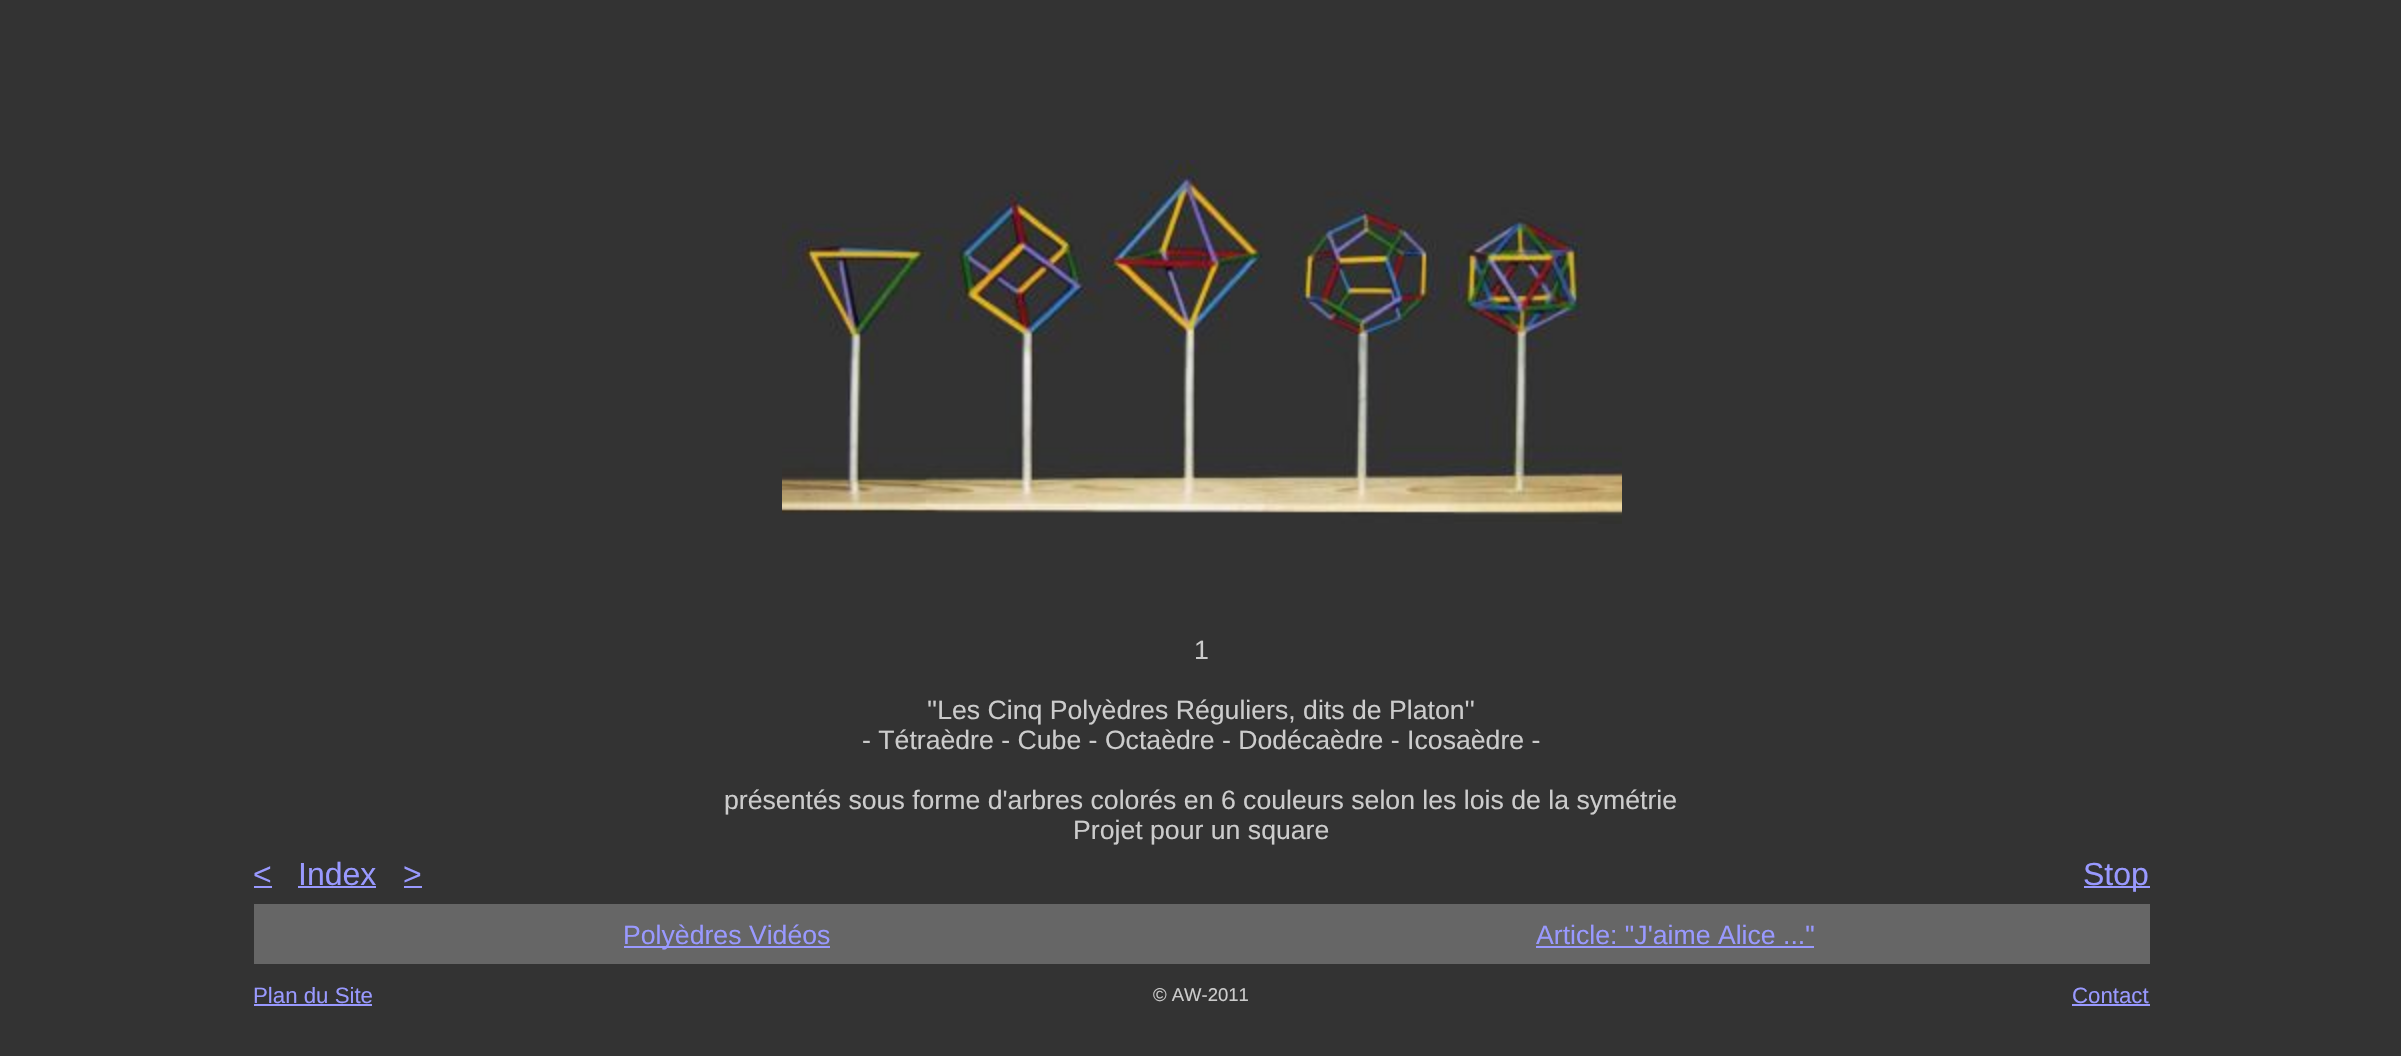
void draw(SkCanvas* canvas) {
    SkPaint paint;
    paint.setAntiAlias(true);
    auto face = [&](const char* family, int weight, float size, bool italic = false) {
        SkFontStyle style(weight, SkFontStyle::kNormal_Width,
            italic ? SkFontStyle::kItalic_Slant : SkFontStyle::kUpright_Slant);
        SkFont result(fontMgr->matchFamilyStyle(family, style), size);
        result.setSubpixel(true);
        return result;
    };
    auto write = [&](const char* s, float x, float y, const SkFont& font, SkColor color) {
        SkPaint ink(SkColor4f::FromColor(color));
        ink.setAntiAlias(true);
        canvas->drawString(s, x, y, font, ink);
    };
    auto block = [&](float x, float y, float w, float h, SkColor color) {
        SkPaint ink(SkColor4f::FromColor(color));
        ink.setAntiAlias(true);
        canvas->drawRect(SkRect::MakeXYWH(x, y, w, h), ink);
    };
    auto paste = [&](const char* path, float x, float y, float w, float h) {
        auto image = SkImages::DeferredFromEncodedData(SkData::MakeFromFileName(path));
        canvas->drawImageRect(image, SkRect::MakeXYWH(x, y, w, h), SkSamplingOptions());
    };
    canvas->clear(SkColorSetRGB(51, 51, 51));
    paste("pic1.png", 782, 160, 840, 364);
    auto kFont1 = face("Liberation Sans", 400, 26.65f);
    write("1", 1194, 659, kFont1, SkColorSetRGB(204, 204, 204));
    write("''Les Cinq Polyèdres Réguliers, dits de Platon''", 927, 719, kFont1, SkColorSetRGB(204, 204, 204));
    write("- Tétraèdre - Cube - Octaèdre - Dodécaèdre - Icosaèdre -", 862, 749, kFont1, SkColorSetRGB(204, 204, 204));
    write("présentés sous forme d'arbres colorés en 6 couleurs selon les lois de la symétrie", 724, 809, kFont1, SkColorSetRGB(204, 204, 204));
    write("Projet pour un square", 1073, 839, kFont1, SkColorSetRGB(204, 204, 204));
    auto kFont2 = face("Liberation Sans", 400, 32);
    write("<", 253, 885, kFont2, SkColorSetRGB(153, 153, 255));
    block(254, 886, 18, 2, SkColorSetRGB(153, 153, 255));
    write("Index", 298, 885, kFont2, SkColorSetRGB(153, 153, 255));
    block(298, 886, 78, 2, SkColorSetRGB(153, 153, 255));
    write(">", 403, 885, kFont2, SkColorSetRGB(153, 153, 255));
    block(404, 886, 18, 2, SkColorSetRGB(153, 153, 255));
    block(2084, 886, 66, 2, SkColorSetRGB(153, 153, 255));
    write("Stop", 2083, 885, kFont2, SkColorSetRGB(153, 153, 255));
    block(254, 904, 1896, 60, SkColorSetRGB(102, 102, 102));
    block(624, 946, 206, 2, SkColorSetRGB(153, 153, 255));
    write("Polyèdres Vidéos", 623, 944, kFont1, SkColorSetRGB(153, 153, 255));
    write("Article: \"J'aime Alice ...\"", 1536, 944, kFont1, SkColorSetRGB(153, 153, 255));
    block(1536, 946, 278, 2, SkColorSetRGB(153, 153, 255));
    auto kFont3 = face("Liberation Sans", 400, 22.25f);
    write("Plan du Site", 253, 1003, kFont3, SkColorSetRGB(153, 153, 255));
    block(254, 1004, 118, 2, SkColorSetRGB(153, 153, 255));
    auto kFont4 = face("Liberation Sans", 400, 18.5f);
    write("© AW-2011", 1153, 1001, kFont4, SkColorSetRGB(204, 204, 204));
    write("Contact", 2072, 1003, kFont3, SkColorSetRGB(153, 153, 255));
    block(2072, 1004, 78, 2, SkColorSetRGB(153, 153, 255));
}
